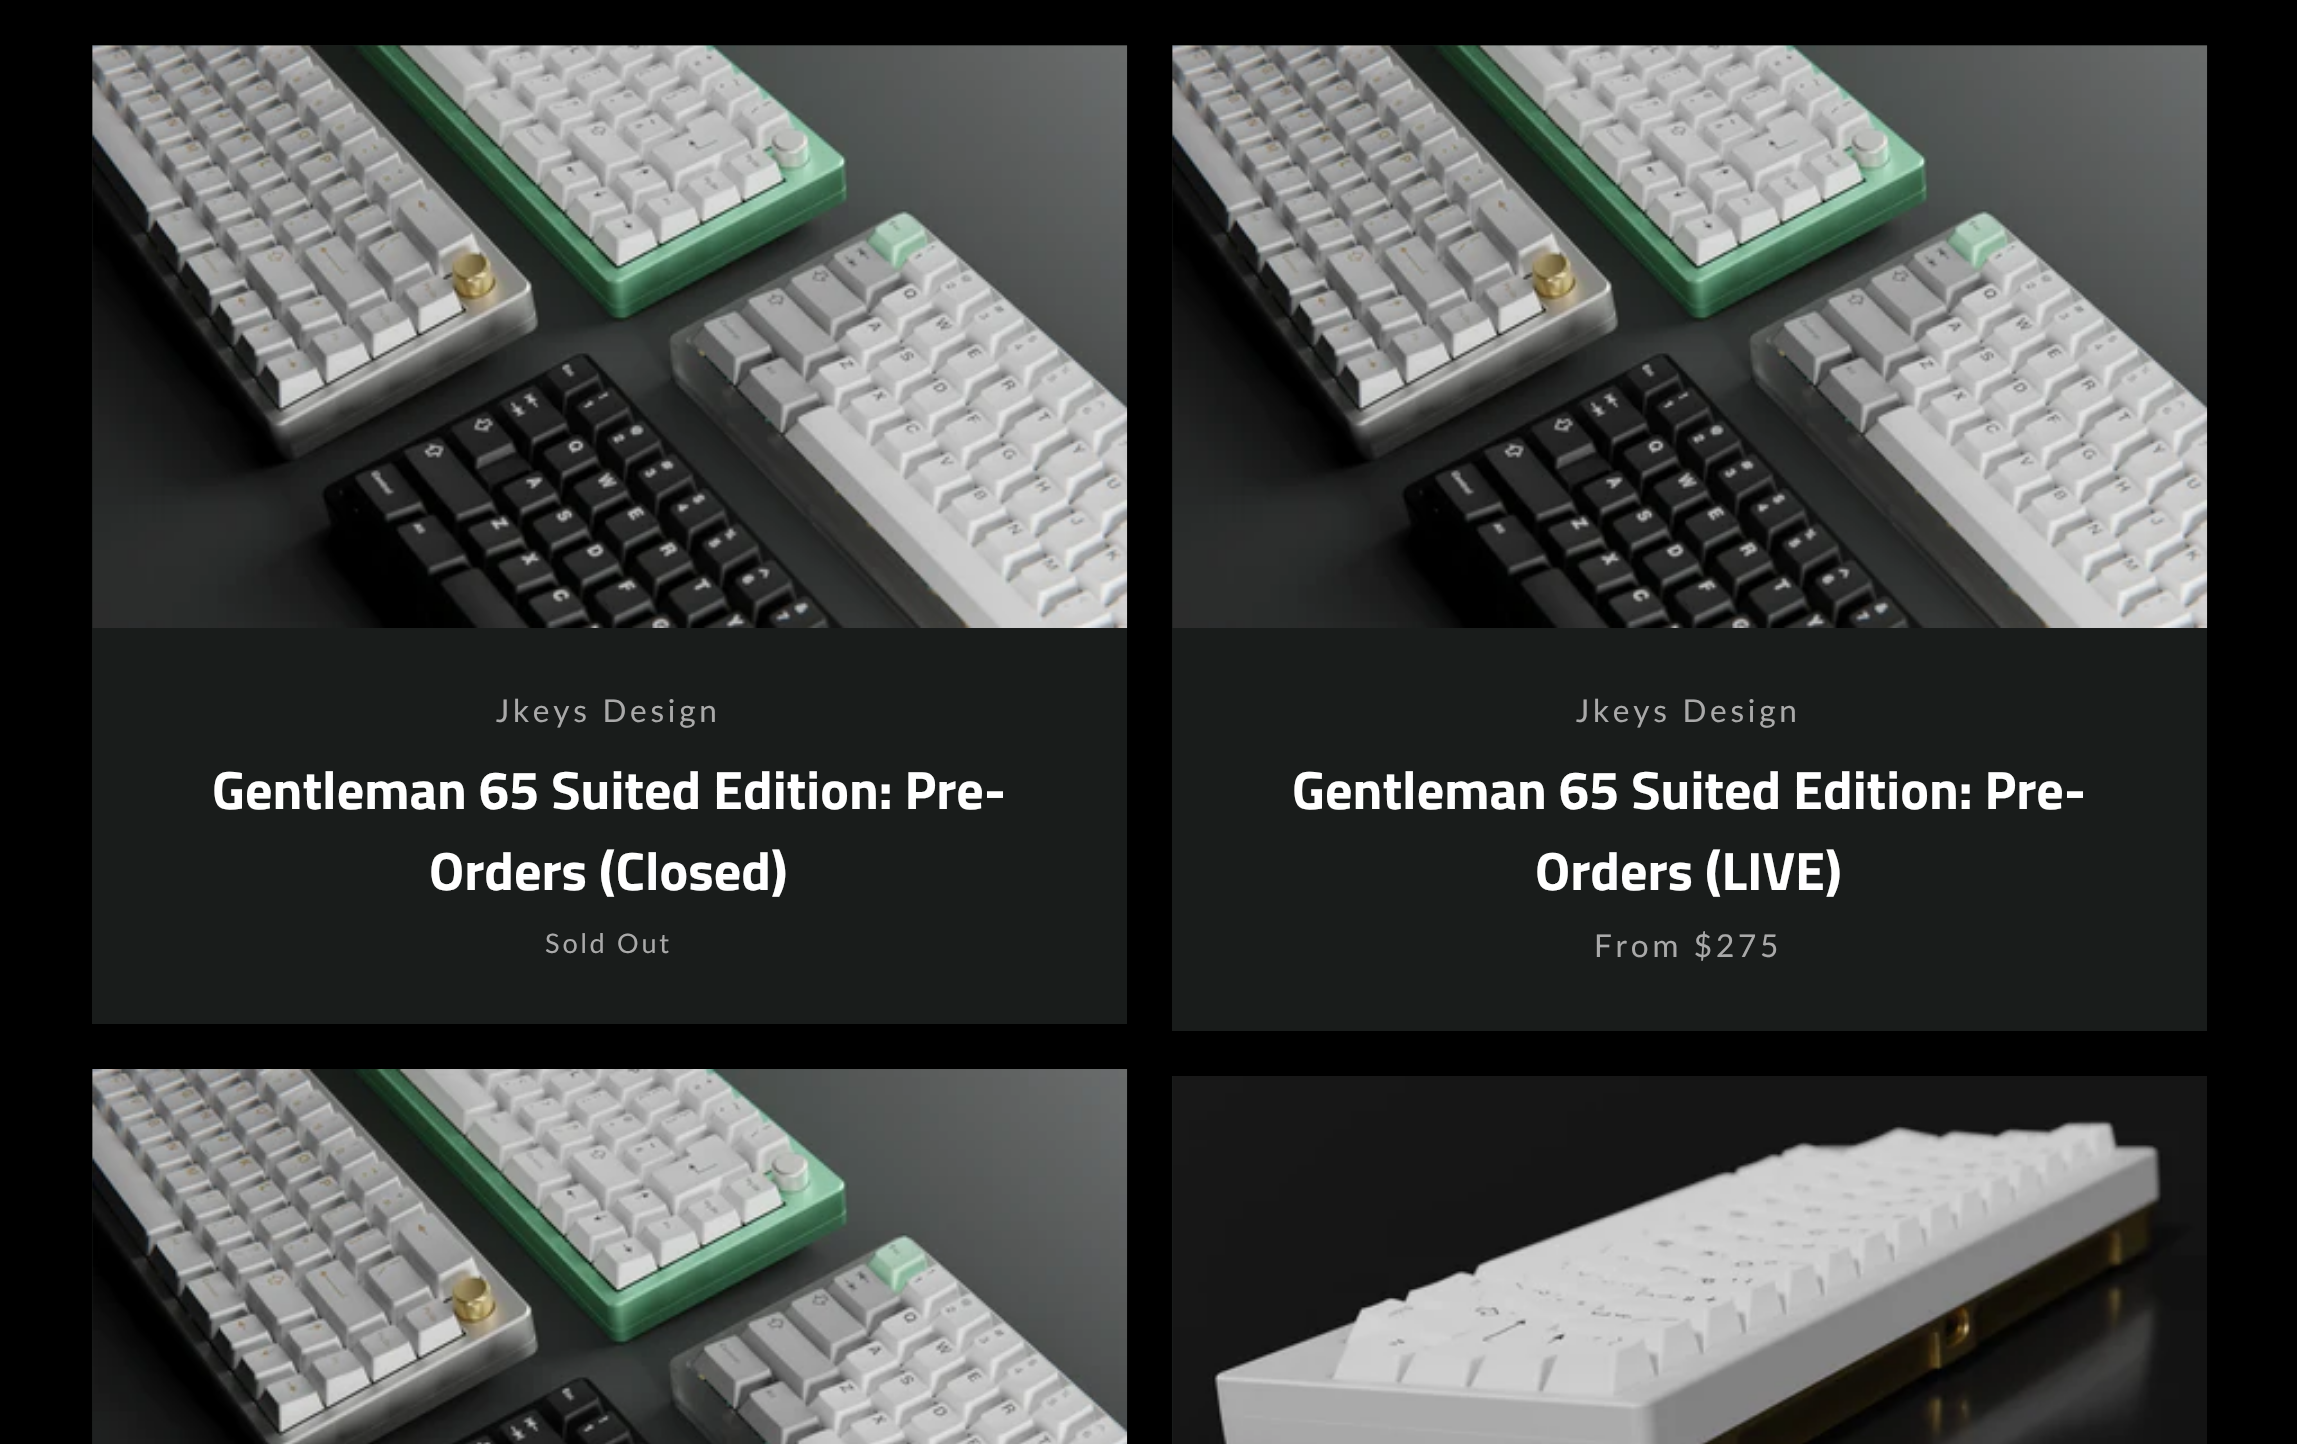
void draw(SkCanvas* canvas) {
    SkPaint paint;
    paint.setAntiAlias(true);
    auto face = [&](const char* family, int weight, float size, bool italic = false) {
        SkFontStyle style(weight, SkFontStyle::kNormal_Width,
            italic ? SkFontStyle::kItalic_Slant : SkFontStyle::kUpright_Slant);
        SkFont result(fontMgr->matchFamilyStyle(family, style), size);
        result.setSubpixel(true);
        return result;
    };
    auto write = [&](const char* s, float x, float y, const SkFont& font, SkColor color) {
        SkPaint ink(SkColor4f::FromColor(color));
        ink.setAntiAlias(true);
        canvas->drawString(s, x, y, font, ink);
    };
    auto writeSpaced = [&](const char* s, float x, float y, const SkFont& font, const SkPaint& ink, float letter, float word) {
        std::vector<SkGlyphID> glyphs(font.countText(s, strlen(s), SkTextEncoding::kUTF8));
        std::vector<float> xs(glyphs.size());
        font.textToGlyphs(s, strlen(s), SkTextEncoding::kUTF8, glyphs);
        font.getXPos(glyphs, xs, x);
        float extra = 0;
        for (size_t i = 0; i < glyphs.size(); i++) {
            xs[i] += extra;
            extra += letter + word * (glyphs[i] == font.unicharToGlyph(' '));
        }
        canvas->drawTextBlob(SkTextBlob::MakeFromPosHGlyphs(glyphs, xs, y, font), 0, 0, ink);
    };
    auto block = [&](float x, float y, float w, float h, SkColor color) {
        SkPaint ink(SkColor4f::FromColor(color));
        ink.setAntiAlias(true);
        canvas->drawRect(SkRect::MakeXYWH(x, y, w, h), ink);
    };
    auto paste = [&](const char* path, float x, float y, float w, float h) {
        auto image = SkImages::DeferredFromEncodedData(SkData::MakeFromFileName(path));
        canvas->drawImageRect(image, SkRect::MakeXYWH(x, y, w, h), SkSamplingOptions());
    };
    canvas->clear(SK_ColorBLACK);
    block(92, 45, 1035, 979, SkColorSetRGB(25, 28, 27));
    paste("pic1.png", 92, 45, 1036, 583);
    auto kFont1 = face("Lato", 400, 31.5f);
    paint.setColor(SkColorSetRGB(169, 169, 169));
    writeSpaced("Jkeys Design", 496, 722, kFont1, paint, 3.75f, 0);
    auto kFont2 = face("Titillium Web", 700, 54);
    write("Gentleman 65 Suited Edition: Pre-", 212, 809, kFont2, SK_ColorWHITE);
    write("Orders (Closed)", 429, 890, kFont2, SK_ColorWHITE);
    auto kFont3 = face("Lato", 400, 27);
    writeSpaced("Sold Out", 545, 953, kFont3, paint, 2.75f, 0);
    block(92, 1069, 1, 375, SkColorSetRGB(25, 28, 27));
    paste("pic2.png", 92, 1069, 1036, 375);
    block(1172, 45, 1035, 986, SkColorSetRGB(25, 28, 27));
    paste("pic3.png", 1172, 45, 1036, 583);
    writeSpaced("Jkeys Design", 1576, 722, kFont1, paint, 3.75f, 0);
    write("Gentleman 65 Suited Edition: Pre-", 1292, 809, kFont2, SK_ColorWHITE);
    write("Orders (LIVE)", 1535, 890, kFont2, SK_ColorWHITE);
    writeSpaced("From $275", 1594, 957, kFont1, paint, 3.75f, 0);
    block(1172, 1076, 1, 368, SkColorSetRGB(25, 28, 27));
    paste("pic4.png", 1173, 1076, 1034, 368);
}
